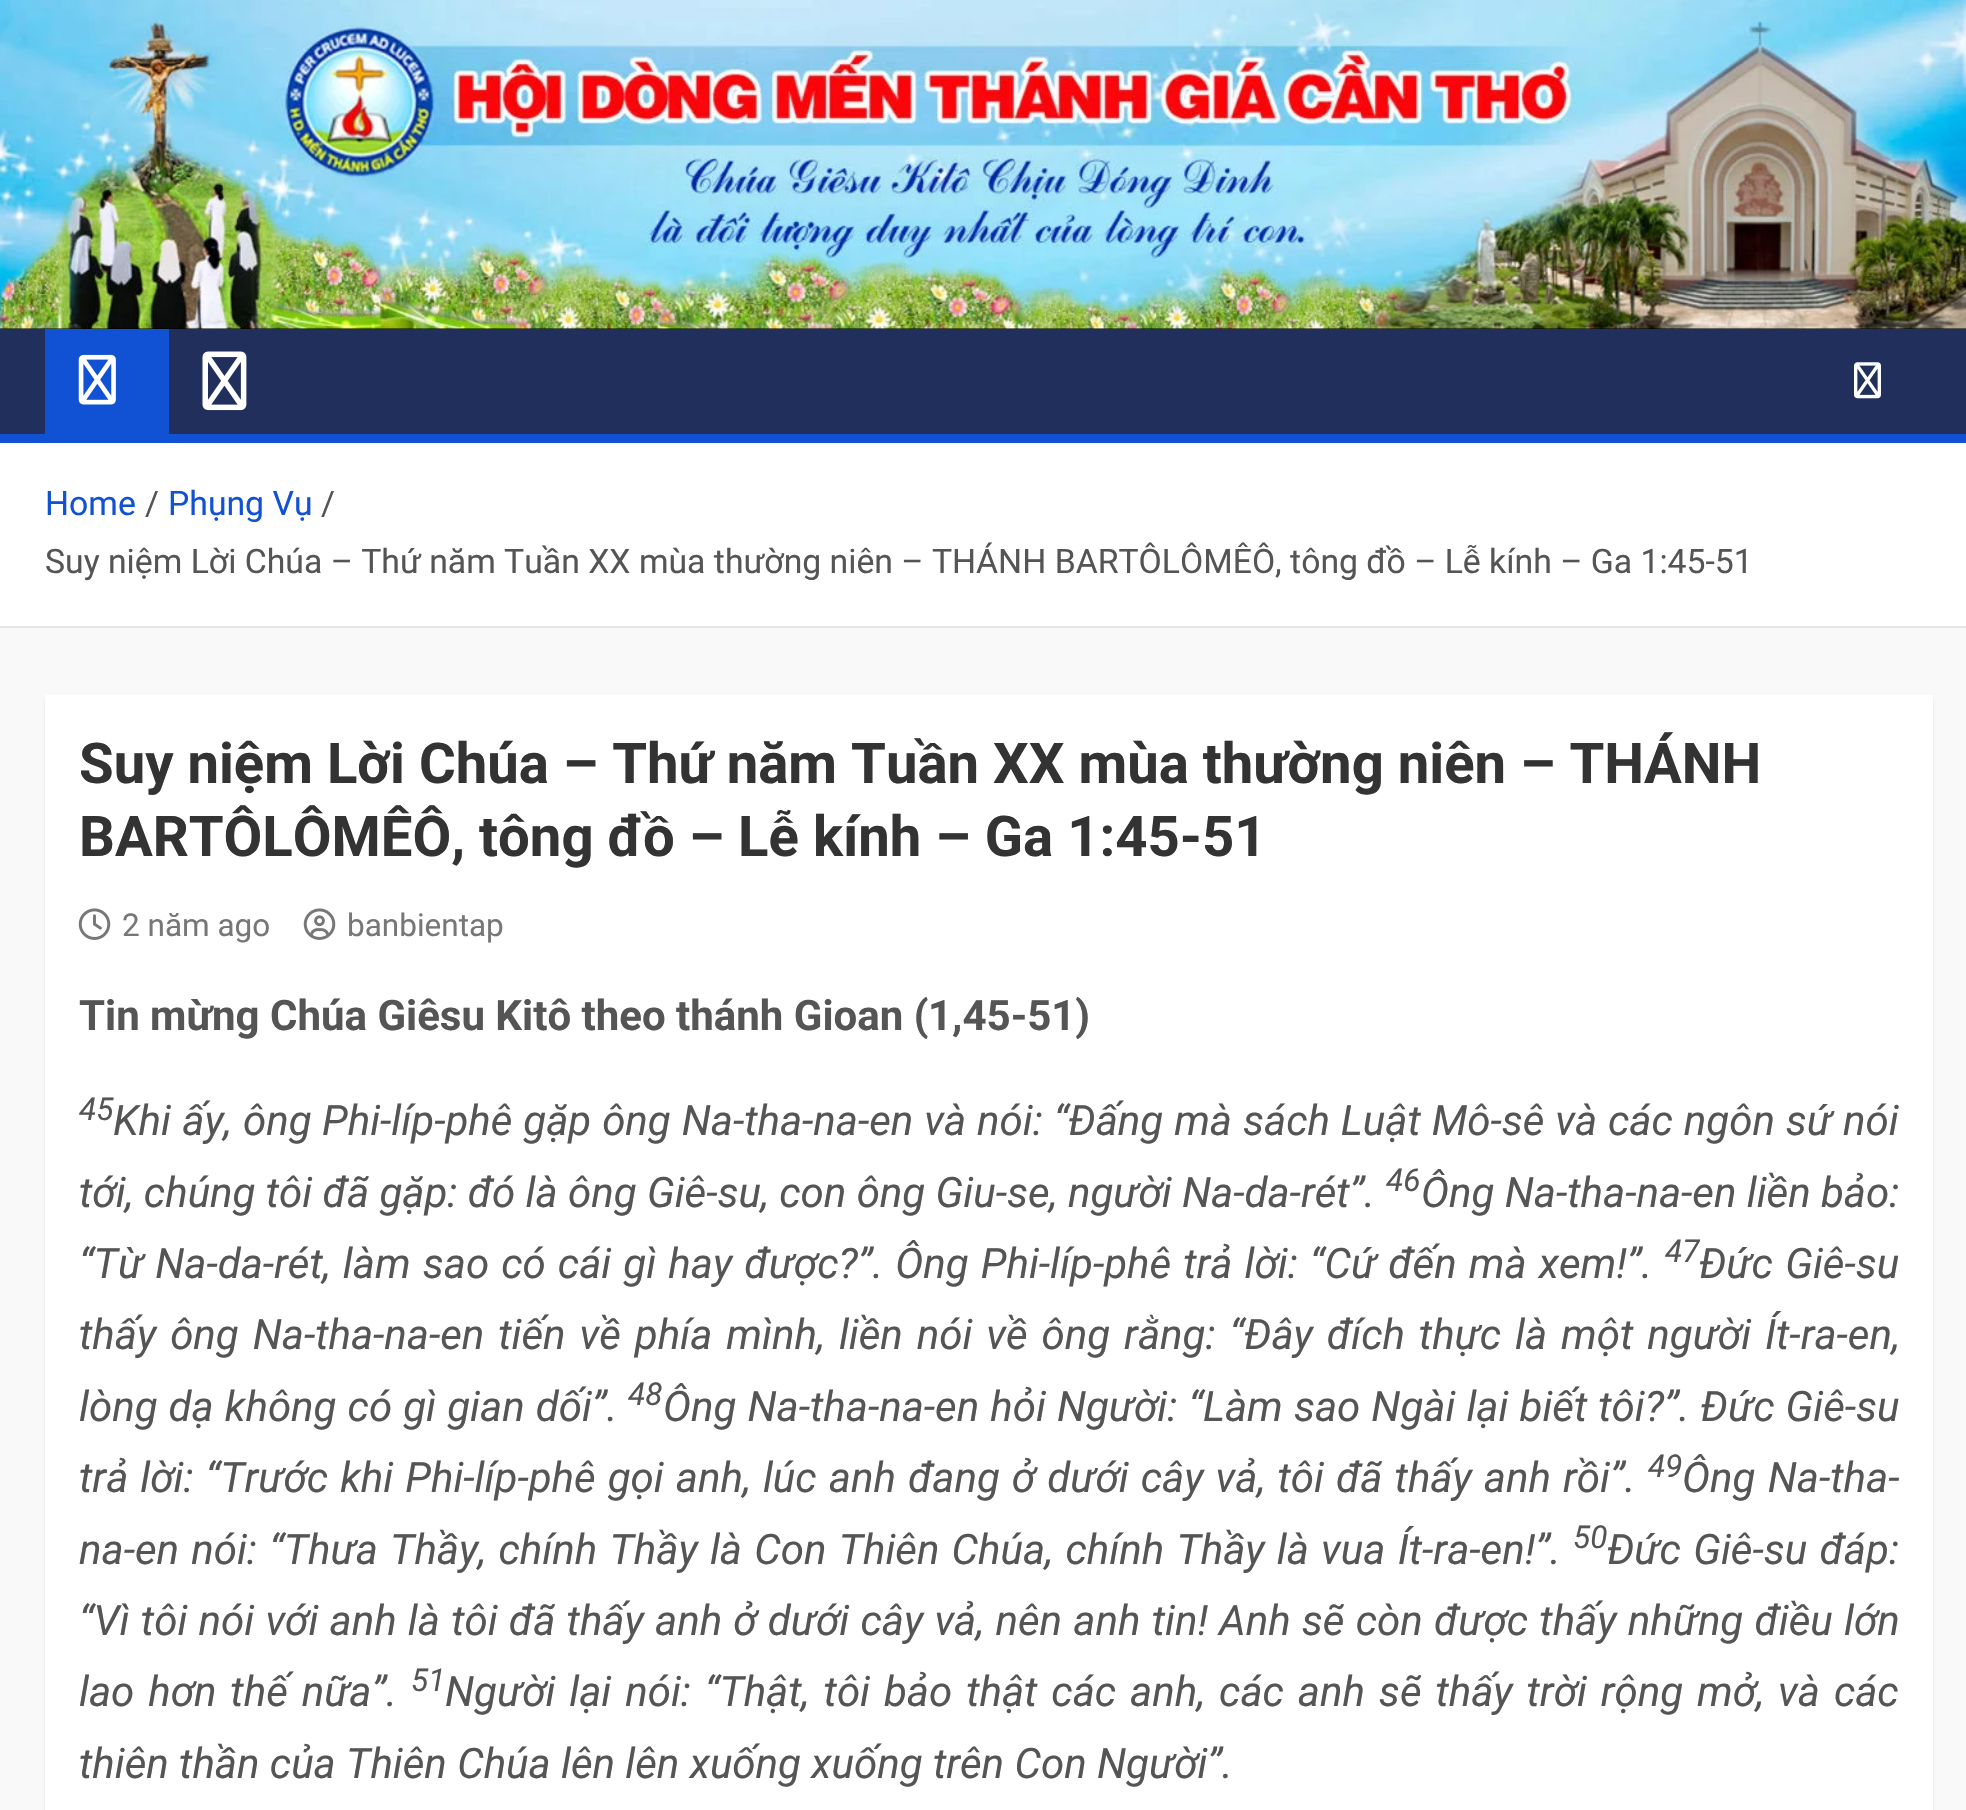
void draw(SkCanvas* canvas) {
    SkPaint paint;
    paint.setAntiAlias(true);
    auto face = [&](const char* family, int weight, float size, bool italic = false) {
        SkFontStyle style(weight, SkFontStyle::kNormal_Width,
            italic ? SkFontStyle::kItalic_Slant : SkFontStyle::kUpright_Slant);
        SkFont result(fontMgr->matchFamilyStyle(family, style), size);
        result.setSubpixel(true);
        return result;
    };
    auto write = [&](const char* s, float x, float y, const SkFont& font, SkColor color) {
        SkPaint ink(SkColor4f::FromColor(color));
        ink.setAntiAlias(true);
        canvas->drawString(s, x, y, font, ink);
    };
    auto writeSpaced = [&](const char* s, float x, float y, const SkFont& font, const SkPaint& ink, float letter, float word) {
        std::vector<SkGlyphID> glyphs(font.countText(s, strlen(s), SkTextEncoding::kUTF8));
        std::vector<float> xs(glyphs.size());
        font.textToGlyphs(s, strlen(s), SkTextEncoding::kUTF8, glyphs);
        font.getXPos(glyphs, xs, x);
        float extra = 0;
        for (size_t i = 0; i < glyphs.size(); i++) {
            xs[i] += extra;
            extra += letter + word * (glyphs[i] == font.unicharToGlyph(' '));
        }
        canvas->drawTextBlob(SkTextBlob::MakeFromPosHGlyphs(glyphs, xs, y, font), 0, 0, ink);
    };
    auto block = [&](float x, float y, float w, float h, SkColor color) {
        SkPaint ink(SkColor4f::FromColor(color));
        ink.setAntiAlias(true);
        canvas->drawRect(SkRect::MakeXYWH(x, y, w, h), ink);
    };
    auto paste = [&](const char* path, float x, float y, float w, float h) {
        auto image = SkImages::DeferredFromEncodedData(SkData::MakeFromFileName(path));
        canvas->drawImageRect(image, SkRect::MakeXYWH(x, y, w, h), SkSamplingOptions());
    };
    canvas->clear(SkColorSetRGB(249, 249, 249));
    block(0, 328, 1966, 1, SK_ColorBLACK);
    paste("pic1.png", 0, 0, 1966, 329);
    block(0, 329, 1966, 105, SkColorSetRGB(32, 47, 91));
    block(45, 329, 124, 105, SkColorSetRGB(17, 81, 211));
    paste("pic2.png", 78, 354, 38, 51);
    paste("pic3.png", 202, 351, 45, 60);
    paste("pic4.png", 1854, 362, 27, 37);
    block(0, 434, 1966, 9, SkColorSetRGB(17, 81, 211));
    block(0, 443, 1966, 183, SK_ColorWHITE);
    block(0, 626, 1966, 2, SkColorSetRGB(230, 230, 230));
    auto kFont1 = face("Roboto", 400, 33.75f);
    write("Home", 45, 515, kFont1, SkColorSetRGB(17, 81, 211));
    write("/", 145, 515, kFont1, SkColorSetRGB(85, 85, 85));
    write("Phụng Vụ", 168, 515, kFont1, SkColorSetRGB(17, 81, 211));
    write("/", 321, 515, kFont1, SkColorSetRGB(85, 85, 85));
    write("Suy niệm Lời Chúa – Thứ năm Tuần XX mùa thường niên – THÁNH BARTÔLÔMÊÔ, tông đồ – Lễ kính – Ga 1:45-51", 45, 573, kFont1, SkColorSetRGB(85, 85, 85));
    paint.setColor(SkColorSetARGB(26, 0, 0, 0));
    paint.setMaskFilter(SkMaskFilter::MakeBlur(kNormal_SkBlurStyle, 1));
    canvas->drawRect(SkRect::MakeXYWH(45, 698, 1888, 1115), paint);
    paint.setMaskFilter(nullptr);
    block(45, 695, 1888, 1115, SK_ColorWHITE);
    auto kFont2 = face("Roboto", 700, 56.25f);
    write("Suy niệm Lời Chúa – Thứ năm Tuần XX mùa thường niên – THÁNH", 79, 783, kFont2, SkColorSetRGB(51, 51, 51));
    write("BARTÔLÔMÊÔ, tông đồ – Lễ kính – Ga 1:45-51", 79, 856, kFont2, SkColorSetRGB(51, 51, 51));
    paste("pic5.png", 78, 908, 33, 32);
    auto kFont3 = face("Roboto", 400, 31.5f);
    write("2 năm ago", 122, 936, kFont3, SkColorSetRGB(119, 119, 119));
    paste("pic6.png", 303, 908, 33, 32);
    write("banbientap", 347, 936, kFont3, SkColorSetRGB(119, 119, 119));
    auto kFont4 = face("Roboto", 700, 42);
    write("Tin mừng Chúa Giêsu Kitô theo thánh Gioan (", 79, 1030, kFont4, SkColorSetRGB(85, 85, 85));
    write("1,45-51)", 928, 1030, kFont4, SkColorSetRGB(85, 85, 85));
    auto kFont5 = face("Roboto", 400, 31.5f, true);
    write("45", 79, 1120, kFont5, SkColorSetRGB(85, 85, 85));
    auto kFont6 = face("Roboto", 400, 42, true);
    paint.setColor(SkColorSetRGB(85, 85, 85));
    writeSpaced("Khi ấy, ông", 113, 1135, kFont6, paint, 0, 1);
    writeSpaced("Phi-líp-phê gặp ông Na-tha-na-en và nói: “Đấng mà sách Luật Mô-sê và các ngôn sứ nói", 322, 1135, kFont6, paint, 0, 0.6f);
    write("tới, chúng tôi đã gặp: đó là ông Giê-su, con ông Giu-se, người Na-da-rét”.", 79, 1207, kFont6, SkColorSetRGB(85, 85, 85));
    write("46", 1386, 1191, kFont5, SkColorSetRGB(85, 85, 85));
    write("Ông Na-tha-na-en liền bảo:", 1421, 1207, kFont6, SkColorSetRGB(85, 85, 85));
    writeSpaced("“Từ Na-da-rét, làm sao có cái gì hay được?”. Ông Phi-líp-phê trả lời: “Cứ đến mà xem!”.", 79, 1278, kFont6, paint, 0, 1.75f);
    write("47", 1665, 1262, kFont5, SkColorSetRGB(85, 85, 85));
    writeSpaced("Đức Giê-su", 1699, 1278, kFont6, paint, 0, 2);
    writeSpaced("thấy ông Na-tha-na-en tiến về phía mình, liền nói về ông rằng: “Đây đích thực là một người Ít-ra-en,", 79, 1349, kFont6, paint, 0, 3.6f);
    writeSpaced("lòng dạ không có gì gian dối”.", 79, 1421, kFont6, paint, 0, 0.75f);
    write("48", 628, 1405, kFont5, SkColorSetRGB(85, 85, 85));
    writeSpaced("Ông Na-tha-na-en hỏi Người: “Làm sao Ngài lại biết tôi?”. Đức Giê-su", 663, 1421, kFont6, paint, 0, 0.75f);
    writeSpaced("trả lời: “Trước khi Phi-líp-phê gọi anh, lúc anh đang ở dưới cây vả, tôi đã thấy anh rồi”.", 79, 1492, kFont6, paint, 0, 1.75f);
    write("49", 1648, 1477, kFont5, SkColorSetRGB(85, 85, 85));
    writeSpaced("Ông Na-tha-", 1682, 1492, kFont6, paint, 0, 2);
    writeSpaced("na-en nói: “Thưa Thầy, chính Thầy là Con Thiên Chúa, chính Thầy là vua Ít-ra-en!”.", 79, 1564, kFont6, paint, 0, 1.9f);
    write("50", 1573, 1548, kFont5, SkColorSetRGB(85, 85, 85));
    writeSpaced("Đức Giê-su đáp:", 1607, 1564, kFont6, paint, 0, 2);
    writeSpaced("“Vì tôi nói với anh là tôi đã thấy anh ở dưới cây vả, nên anh tin! Anh sẽ còn được thấy những điều lớn", 79, 1635, kFont6, paint, 0, 0.9f);
    writeSpaced("lao hơn thế nữa”.", 79, 1706, kFont6, paint, 0, 3.6f);
    write("51", 411, 1691, kFont5, SkColorSetRGB(85, 85, 85));
    writeSpaced("Người lại nói: “Thật, tôi bảo thật các anh, các anh sẽ thấy trời rộng mở, và các", 445, 1706, kFont6, paint, 0, 3.6f);
    write("thiên thần của Thiên Chúa lên lên xuống xuống trên Con Người”.", 79, 1778, kFont6, SkColorSetRGB(85, 85, 85));
}
